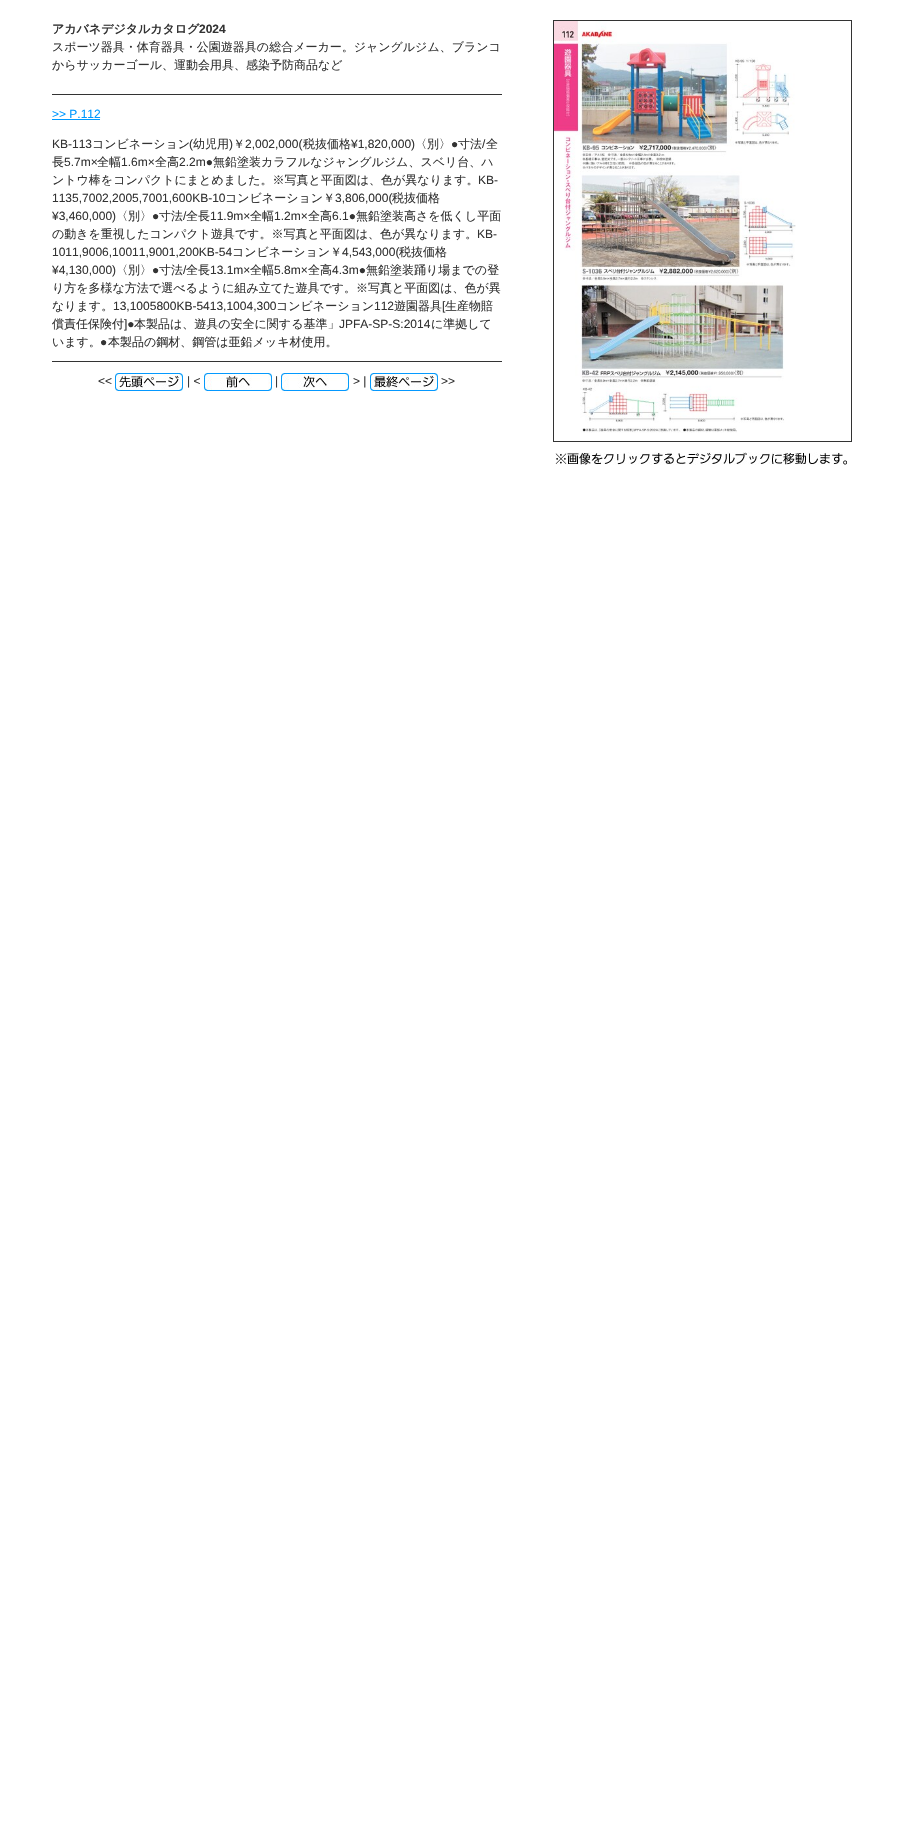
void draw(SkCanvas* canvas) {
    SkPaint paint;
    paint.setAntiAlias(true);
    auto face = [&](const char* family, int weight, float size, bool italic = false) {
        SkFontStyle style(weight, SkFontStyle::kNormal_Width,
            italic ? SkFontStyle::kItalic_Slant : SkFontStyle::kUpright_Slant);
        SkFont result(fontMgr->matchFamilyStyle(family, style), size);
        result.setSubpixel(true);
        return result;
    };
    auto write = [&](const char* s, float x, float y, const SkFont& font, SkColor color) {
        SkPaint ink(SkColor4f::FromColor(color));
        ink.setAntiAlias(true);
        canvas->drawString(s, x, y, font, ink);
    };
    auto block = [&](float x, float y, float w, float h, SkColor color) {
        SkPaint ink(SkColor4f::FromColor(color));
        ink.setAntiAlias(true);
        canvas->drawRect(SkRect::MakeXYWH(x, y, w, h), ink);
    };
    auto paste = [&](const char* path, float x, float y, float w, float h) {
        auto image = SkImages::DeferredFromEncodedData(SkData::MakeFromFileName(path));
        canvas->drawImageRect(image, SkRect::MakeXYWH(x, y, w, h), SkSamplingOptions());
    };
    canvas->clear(SK_ColorWHITE);
    auto kFont1 = face("WenQuanYi Zen Hei", 700, 12);
    write("アカバネデジタルカタログ", 52, 33, kFont1, SkColorSetRGB(51, 51, 51));
    auto kFont2 = face("Liberation Sans", 700, 12);
    write("2024", 199, 33, kFont2, SkColorSetRGB(51, 51, 51));
    auto kFont3 = face("WenQuanYi Zen Hei", 500, 12);
    write("スポーツ器具・体育器具・公園遊器具の総合メーカー。ジャングルジム、ブランコ", 52, 51, kFont3, SkColorSetRGB(51, 51, 51));
    write("からサッカーゴール、運動会用具、感染予防商品など", 52, 69, kFont3, SkColorSetRGB(51, 51, 51));
    block(52, 94, 450, 1, SkColorSetRGB(51, 51, 51));
    block(52, 361, 450, 1, SkColorSetRGB(51, 51, 51));
    auto kFont4 = face("Liberation Sans", 400, 12);
    write(">> P.112", 52, 118, kFont4, SkColorSetRGB(0, 153, 255));
    block(52, 119, 48, 1, SkColorSetRGB(0, 153, 255));
    write("KB-113", 52, 148, kFont4, SkColorSetRGB(51, 51, 51));
    write("コンビネーション", 92, 148, kFont3, SkColorSetRGB(51, 51, 51));
    write("(", 189, 148, kFont4, SkColorSetRGB(51, 51, 51));
    write("幼児用", 193, 148, kFont3, SkColorSetRGB(51, 51, 51));
    write(")", 229, 148, kFont4, SkColorSetRGB(51, 51, 51));
    write("￥", 233, 148, kFont3, SkColorSetRGB(51, 51, 51));
    write("2,002,000(", 245, 148, kFont4, SkColorSetRGB(51, 51, 51));
    write("税抜価格", 303, 148, kFont3, SkColorSetRGB(51, 51, 51));
    write("¥1,820,000)", 351, 148, kFont4, SkColorSetRGB(51, 51, 51));
    write("〈別〉", 415, 148, kFont3, SkColorSetRGB(51, 51, 51));
    write("●", 451, 148, kFont4, SkColorSetRGB(51, 51, 51));
    write("寸法", 458, 148, kFont3, SkColorSetRGB(51, 51, 51));
    write("/", 482, 148, kFont4, SkColorSetRGB(51, 51, 51));
    write("全", 486, 148, kFont3, SkColorSetRGB(51, 51, 51));
    write("長", 52, 166, kFont3, SkColorSetRGB(51, 51, 51));
    write("5.7m×", 64, 166, kFont4, SkColorSetRGB(51, 51, 51));
    write("全幅", 97, 166, kFont3, SkColorSetRGB(51, 51, 51));
    write("1.6m×", 121, 166, kFont4, SkColorSetRGB(51, 51, 51));
    write("全高", 155, 166, kFont3, SkColorSetRGB(51, 51, 51));
    write("2.2m●", 179, 166, kFont4, SkColorSetRGB(51, 51, 51));
    write("無鉛塗装カラフルなジャングルジム、スベリ台、ハ", 213, 166, kFont3, SkColorSetRGB(51, 51, 51));
    write("ントウ棒をコンパクトにまとめました。※写真と平面図は、色が異なります。", 52, 184, kFont3, SkColorSetRGB(51, 51, 51));
    write("KB-", 478, 184, kFont4, SkColorSetRGB(51, 51, 51));
    write("1135,7002,2005,7001,600KB-10", 52, 202, kFont4, SkColorSetRGB(51, 51, 51));
    write("コンビネーション￥", 225, 202, kFont3, SkColorSetRGB(51, 51, 51));
    write("3,806,000(", 335, 202, kFont4, SkColorSetRGB(51, 51, 51));
    write("税抜価格", 392, 202, kFont3, SkColorSetRGB(51, 51, 51));
    write("¥3,460,000)", 52, 220, kFont4, SkColorSetRGB(51, 51, 51));
    write("〈別〉", 116, 220, kFont3, SkColorSetRGB(51, 51, 51));
    write("●", 152, 220, kFont4, SkColorSetRGB(51, 51, 51));
    write("寸法", 159, 220, kFont3, SkColorSetRGB(51, 51, 51));
    write("/", 183, 220, kFont4, SkColorSetRGB(51, 51, 51));
    write("全長", 186, 220, kFont3, SkColorSetRGB(51, 51, 51));
    write("11.9m×", 210, 220, kFont4, SkColorSetRGB(51, 51, 51));
    write("全幅", 250, 220, kFont3, SkColorSetRGB(51, 51, 51));
    write("1.2m×", 274, 220, kFont4, SkColorSetRGB(51, 51, 51));
    write("全高", 308, 220, kFont3, SkColorSetRGB(51, 51, 51));
    write("6.1●", 332, 220, kFont4, SkColorSetRGB(51, 51, 51));
    write("無鉛塗装高さを低くし平面", 356, 220, kFont3, SkColorSetRGB(51, 51, 51));
    write("の動きを重視したコンパクト遊具です。※写真と平面図は、色が異なります。", 52, 238, kFont3, SkColorSetRGB(51, 51, 51));
    write("KB-", 477, 238, kFont4, SkColorSetRGB(51, 51, 51));
    write("1011,9006,10011,9001,200KB-54", 52, 256, kFont4, SkColorSetRGB(51, 51, 51));
    write("コンビネーション￥", 232, 256, kFont3, SkColorSetRGB(51, 51, 51));
    write("4,543,000(", 342, 256, kFont4, SkColorSetRGB(51, 51, 51));
    write("税抜価格", 399, 256, kFont3, SkColorSetRGB(51, 51, 51));
    write("¥4,130,000)", 52, 274, kFont4, SkColorSetRGB(51, 51, 51));
    write("〈別〉", 116, 274, kFont3, SkColorSetRGB(51, 51, 51));
    write("●", 152, 274, kFont4, SkColorSetRGB(51, 51, 51));
    write("寸法", 159, 274, kFont3, SkColorSetRGB(51, 51, 51));
    write("/", 183, 274, kFont4, SkColorSetRGB(51, 51, 51));
    write("全長", 186, 274, kFont3, SkColorSetRGB(51, 51, 51));
    write("13.1m×", 210, 274, kFont4, SkColorSetRGB(51, 51, 51));
    write("全幅", 250, 274, kFont3, SkColorSetRGB(51, 51, 51));
    write("5.8m×", 274, 274, kFont4, SkColorSetRGB(51, 51, 51));
    write("全高", 308, 274, kFont3, SkColorSetRGB(51, 51, 51));
    write("4.3m●", 332, 274, kFont4, SkColorSetRGB(51, 51, 51));
    write("無鉛塗装踊り場までの登", 366, 274, kFont3, SkColorSetRGB(51, 51, 51));
    write("り方を多様な方法で選べるように組み立てた遊具です。※写真と平面図は、色が異", 52, 292, kFont3, SkColorSetRGB(51, 51, 51));
    write("なります。", 52, 310, kFont3, SkColorSetRGB(51, 51, 51));
    write("13,1005800KB-5413,1004,300", 113, 310, kFont4, SkColorSetRGB(51, 51, 51));
    write("コンビネーション", 276, 310, kFont3, SkColorSetRGB(51, 51, 51));
    write("112", 374, 310, kFont4, SkColorSetRGB(51, 51, 51));
    write("遊園器具", 394, 310, kFont3, SkColorSetRGB(51, 51, 51));
    write("[", 442, 310, kFont4, SkColorSetRGB(51, 51, 51));
    write("生産物賠", 445, 310, kFont3, SkColorSetRGB(51, 51, 51));
    write("償責任保険付", 52, 328, kFont3, SkColorSetRGB(51, 51, 51));
    write("]●", 124, 328, kFont4, SkColorSetRGB(51, 51, 51));
    write("本製品は、遊具の安全に関する基準」", 134, 328, kFont3, SkColorSetRGB(51, 51, 51));
    write("JPFA-SP-S:2014", 339, 328, kFont4, SkColorSetRGB(51, 51, 51));
    write("に準拠して", 431, 328, kFont3, SkColorSetRGB(51, 51, 51));
    write("います。", 52, 346, kFont3, SkColorSetRGB(51, 51, 51));
    write("●", 100, 346, kFont4, SkColorSetRGB(51, 51, 51));
    write("本製品の鋼材、鋼管は亜鉛メッキ材使用。", 108, 346, kFont3, SkColorSetRGB(51, 51, 51));
    write("<<", 98, 385, kFont4, SkColorSetRGB(51, 51, 51));
    paste("pic1.png", 115, 373, 68, 18);
    write("| <", 187, 385, kFont4, SkColorSetRGB(51, 51, 51));
    paste("pic2.png", 204, 373, 68, 18);
    write("|", 275, 385, kFont4, SkColorSetRGB(51, 51, 51));
    paste("pic3.png", 281, 373, 68, 18);
    write("> |", 353, 385, kFont4, SkColorSetRGB(51, 51, 51));
    paste("pic4.png", 370, 373, 68, 18);
    write(">>", 441, 385, kFont4, SkColorSetRGB(51, 51, 51));
    paint.setStyle(SkPaint::kStroke_Style);
    paint.setStrokeWidth(1);
    paint.setColor(SkColorSetRGB(51, 51, 51));
    canvas->drawRect(SkRect::MakeXYWH(553.5f, 20.5f, 298, 421), paint);
    paste("pic5.png", 554, 21, 242, 412);
    paste("pic6.png", 555, 452, 292, 13);
}
